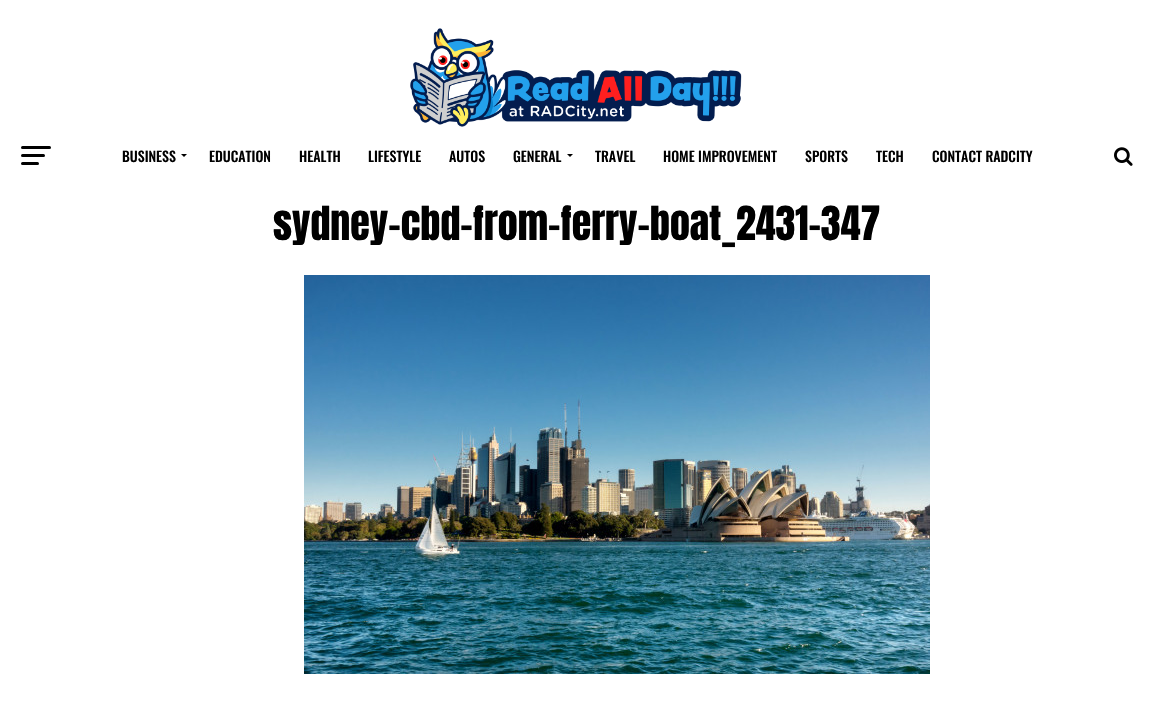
void draw(SkCanvas* canvas) {
    SkPaint paint;
    paint.setAntiAlias(true);
    auto face = [&](const char* family, int weight, float size, bool italic = false) {
        SkFontStyle style(weight, SkFontStyle::kNormal_Width,
            italic ? SkFontStyle::kItalic_Slant : SkFontStyle::kUpright_Slant);
        SkFont result(fontMgr->matchFamilyStyle(family, style), size);
        result.setSubpixel(true);
        return result;
    };
    auto write = [&](const char* s, float x, float y, const SkFont& font, SkColor color) {
        SkPaint ink(SkColor4f::FromColor(color));
        ink.setAntiAlias(true);
        canvas->drawString(s, x, y, font, ink);
    };
    auto card = [&](float x, float y, float w, float h, float radius, SkColor color) {
        SkPaint ink(SkColor4f::FromColor(color));
        ink.setAntiAlias(true);
        canvas->drawRoundRect(SkRect::MakeXYWH(x, y, w, h), radius, radius, ink);
    };
    auto paste = [&](const char* path, float x, float y, float w, float h) {
        auto image = SkImages::DeferredFromEncodedData(SkData::MakeFromFileName(path));
        canvas->drawImageRect(image, SkRect::MakeXYWH(x, y, w, h), SkSamplingOptions());
    };
    canvas->clear(SK_ColorWHITE);
    paste("pic1.png", 410, 28, 332, 99);
    card(21, 146, 30, 3, 1.5f, SK_ColorBLACK);
    card(21, 154, 24, 3, 1.5f, SK_ColorBLACK);
    card(21, 162, 18, 3, 1.5f, SK_ColorBLACK);
    auto kFont1 = face("Oswald", 500, 14);
    write("BUSINESS", 122, 162, kFont1, SK_ColorBLACK);
    paint.setColor(SK_ColorBLACK);
    canvas->drawPath(SkPathBuilder().moveTo(181, 154).lineTo(187, 154).lineTo(184, 157).close().detach(), paint);
    write("EDUCATION", 209, 162, kFont1, SK_ColorBLACK);
    write("HEALTH", 299, 162, kFont1, SK_ColorBLACK);
    write("LIFESTYLE", 368, 162, kFont1, SK_ColorBLACK);
    write("AUTOS", 449, 162, kFont1, SK_ColorBLACK);
    write("GENERAL", 513, 162, kFont1, SK_ColorBLACK);
    canvas->drawPath(SkPathBuilder().moveTo(567, 154).lineTo(573, 154).lineTo(570, 157).close().detach(), paint);
    write("TRAVEL", 595, 162, kFont1, SK_ColorBLACK);
    write("HOME IMPROVEMENT", 663, 162, kFont1, SK_ColorBLACK);
    write("SPORTS", 805, 162, kFont1, SK_ColorBLACK);
    write("TECH", 876, 162, kFont1, SK_ColorBLACK);
    write("CONTACT RADCITY", 932, 162, kFont1, SK_ColorBLACK);
    paste("pic2.png", 1114, 147, 19, 19);
    auto kFont2 = face("Anton", 400, 40);
    write("sydney-cbd-from-ferry-boat_2431-347", 273, 240, kFont2, SK_ColorBLACK);
    paste("pic3.png", 304, 275, 626, 399);
}
